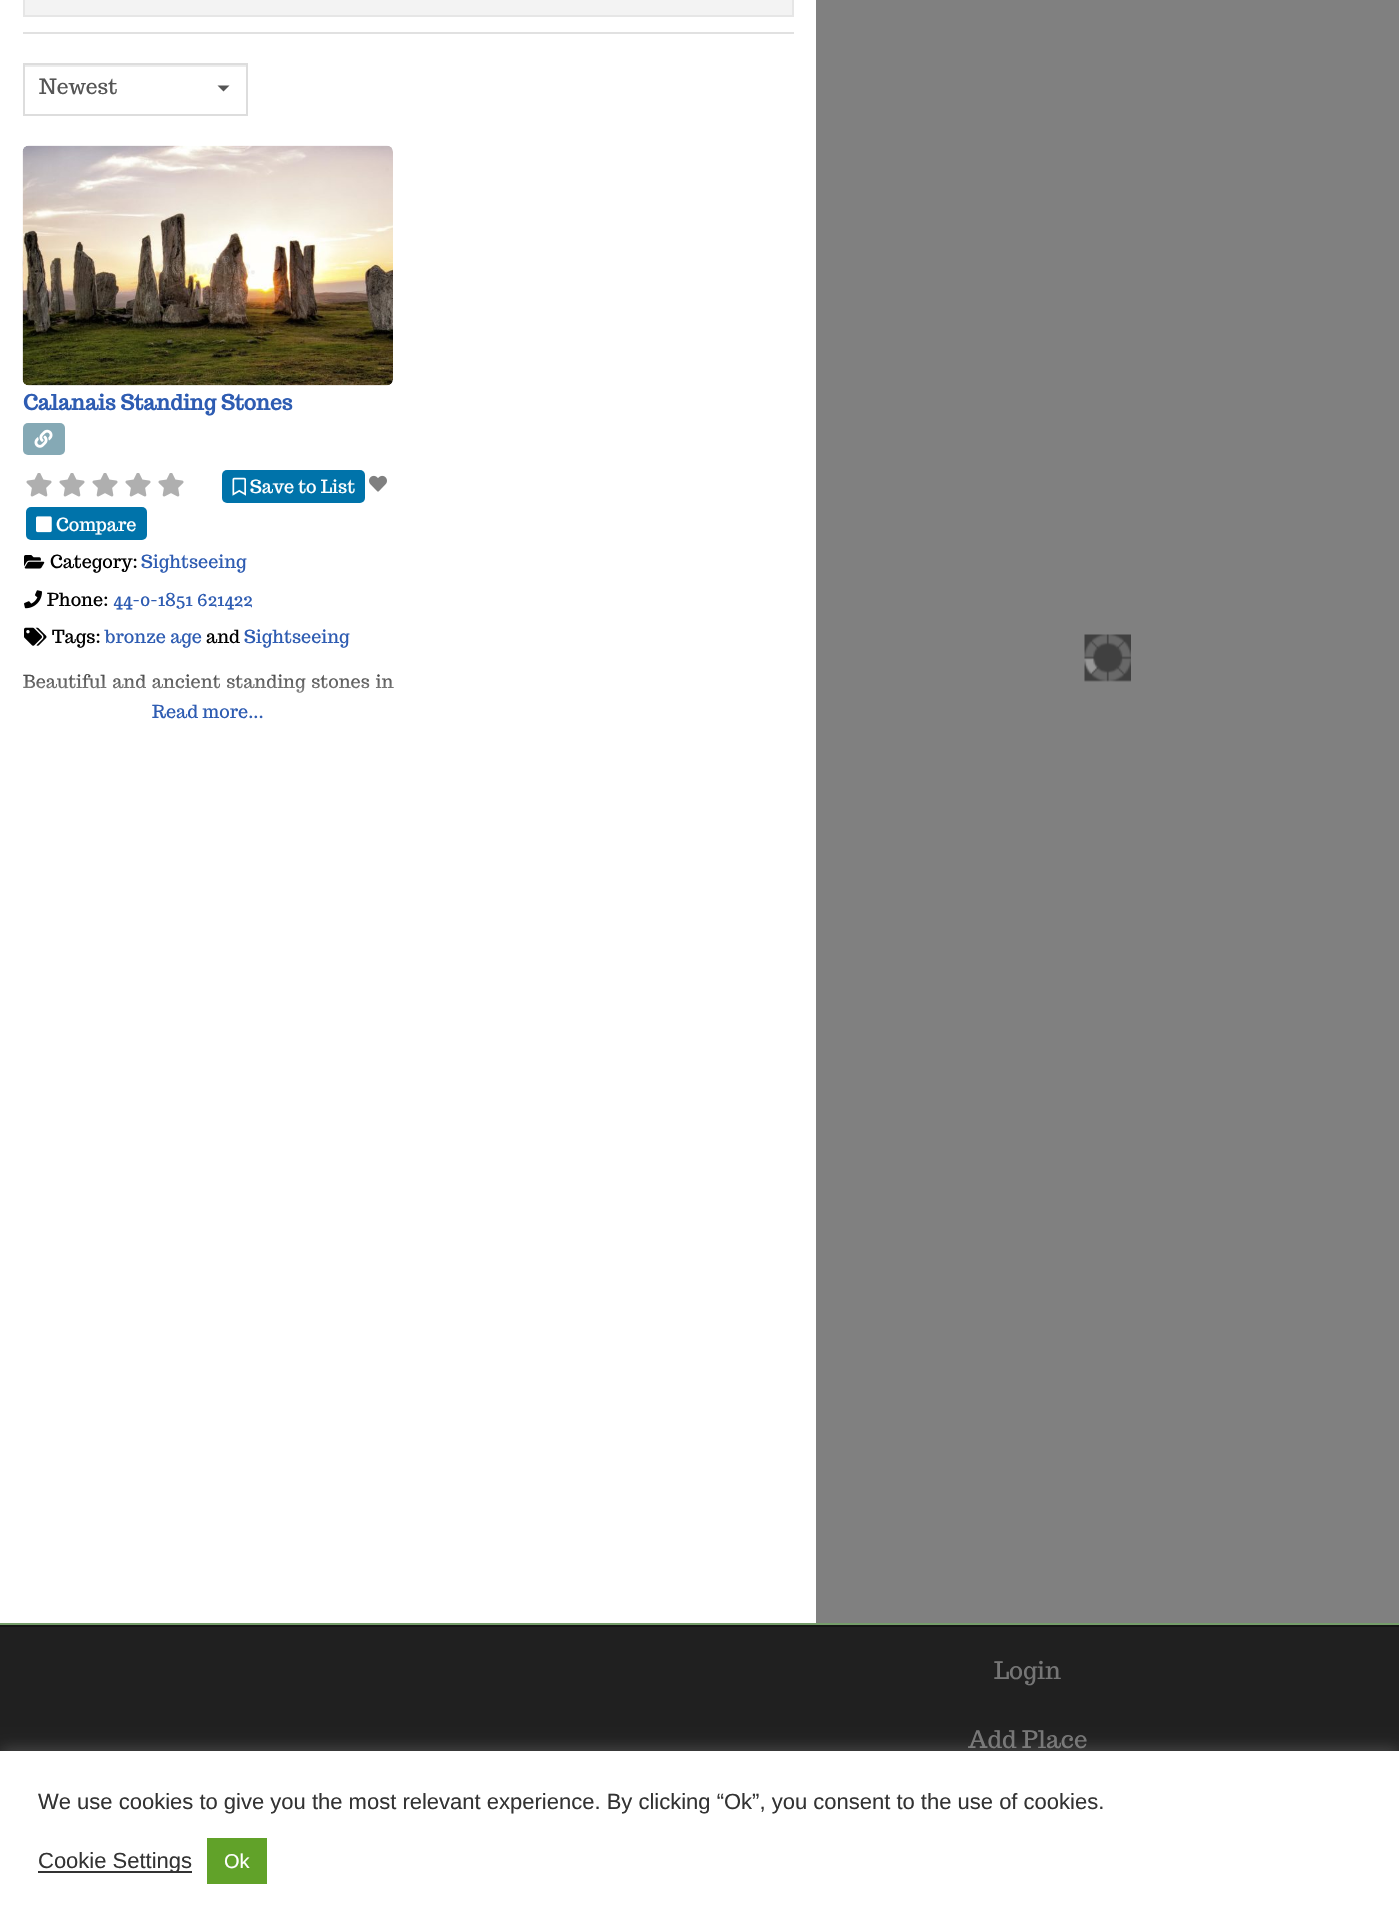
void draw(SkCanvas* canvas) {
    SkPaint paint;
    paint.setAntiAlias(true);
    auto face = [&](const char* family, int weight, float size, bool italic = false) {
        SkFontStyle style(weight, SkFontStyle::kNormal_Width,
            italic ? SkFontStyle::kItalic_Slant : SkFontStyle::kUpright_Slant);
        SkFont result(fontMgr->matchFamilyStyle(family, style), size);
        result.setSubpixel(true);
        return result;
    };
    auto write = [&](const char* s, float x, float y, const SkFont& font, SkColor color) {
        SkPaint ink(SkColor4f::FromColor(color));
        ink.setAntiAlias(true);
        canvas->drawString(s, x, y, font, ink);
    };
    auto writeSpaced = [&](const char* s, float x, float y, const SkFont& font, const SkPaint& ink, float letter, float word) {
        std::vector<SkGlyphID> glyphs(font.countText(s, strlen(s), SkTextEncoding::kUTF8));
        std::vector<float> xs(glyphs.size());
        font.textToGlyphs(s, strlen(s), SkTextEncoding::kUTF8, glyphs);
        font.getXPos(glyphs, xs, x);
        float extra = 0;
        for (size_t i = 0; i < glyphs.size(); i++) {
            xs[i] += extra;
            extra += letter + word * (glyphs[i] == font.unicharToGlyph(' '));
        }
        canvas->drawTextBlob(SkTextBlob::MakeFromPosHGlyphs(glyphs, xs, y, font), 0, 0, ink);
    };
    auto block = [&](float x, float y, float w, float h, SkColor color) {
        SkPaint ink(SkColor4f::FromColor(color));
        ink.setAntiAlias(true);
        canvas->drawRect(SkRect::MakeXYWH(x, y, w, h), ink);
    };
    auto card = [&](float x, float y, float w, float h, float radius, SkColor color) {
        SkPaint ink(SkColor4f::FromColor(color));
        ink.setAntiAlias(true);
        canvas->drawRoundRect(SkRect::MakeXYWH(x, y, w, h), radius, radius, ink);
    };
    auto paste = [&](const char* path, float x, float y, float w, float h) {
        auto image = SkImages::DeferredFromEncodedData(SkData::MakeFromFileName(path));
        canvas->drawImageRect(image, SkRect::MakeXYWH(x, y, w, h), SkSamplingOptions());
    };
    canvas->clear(SK_ColorWHITE);
    block(23, 32, 771, 2, SkColorSetRGB(225, 225, 225));
    paint.setColor(SkColorSetRGB(243, 243, 243));
    canvas->drawRect(SkRect::MakeXYWH(24, -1, 769, 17), paint);
    paint.setStyle(SkPaint::kStroke_Style);
    paint.setStrokeWidth(2);
    paint.setColor(SkColorSetRGB(230, 230, 230));
    canvas->drawRect(SkRect::MakeXYWH(24, -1, 769, 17), paint);
    block(24, 65, 222, 2, SkColorSetRGB(236, 236, 236));
    paint.setColor(SkColorSetRGB(221, 221, 221));
    canvas->drawRect(SkRect::MakeXYWH(24, 64, 223, 51), paint);
    auto kFont1 = face("Trocchi", 400, 21);
    write("Newest", 39, 94, kFont1, SkColorSetRGB(85, 85, 85));
    paint.setStyle(SkPaint::kFill_Style);
    paint.setColor(SkColorSetRGB(85, 85, 85));
    canvas->drawPath(SkPathBuilder().moveTo(217.5f, 85.5f).lineTo(229.5f, 85.5f).lineTo(223.5f, 91.5f).close().detach(), paint);
    paste("pic1.png", 22, 145, 371, 241);
    auto kFont2 = face("Trocchi", 700, 21);
    write("Calanais Standing Stones", 23, 410, kFont2, SkColorSetRGB(46, 92, 178));
    card(23, 423, 42, 32, 5, SkColorSetRGB(133, 169, 181));
    paste("pic2.png", 34, 429, 19, 19);
    paste("pic3.png", 26, 473, 26, 24);
    paste("pic3.png", 59, 473, 26, 24);
    paste("pic3.png", 92, 473, 26, 24);
    paste("pic3.png", 125, 473, 26, 24);
    paste("pic3.png", 158, 473, 26, 24);
    card(222, 470, 143, 33, 5, SkColorSetRGB(0, 115, 170));
    paste("pic4.png", 232, 477, 14, 19);
    auto kFont3 = face("Trocchi", 400, 18);
    write("Save to List", 250, 493, kFont3, SK_ColorWHITE);
    paste("pic5.png", 369, 475, 18, 17);
    card(26, 507, 121, 33, 5, SkColorSetRGB(0, 115, 170));
    paste("pic6.png", 36, 516, 16, 17);
    write("Compare", 56, 531, kFont3, SK_ColorWHITE);
    paste("pic7.png", 24, 555, 21, 14);
    write("Category:", 50, 568, kFont3, SK_ColorBLACK);
    write("Sightseeing", 141, 568, kFont3, SkColorSetRGB(46, 92, 178));
    paste("pic8.png", 24, 590, 18, 19);
    write("Phone:", 47, 606, kFont3, SK_ColorBLACK);
    write("44-0-1851 621422", 113, 606, kFont3, SkColorSetRGB(46, 92, 178));
    paste("pic9.png", 24, 627, 23, 19);
    write("Tags:", 52, 643, kFont3, SK_ColorBLACK);
    write("bronze age", 105, 643, kFont3, SkColorSetRGB(46, 92, 178));
    write("and", 206, 643, kFont3, SK_ColorBLACK);
    write("Sightseeing", 244, 643, kFont3, SkColorSetRGB(46, 92, 178));
    paint.setColor(SK_ColorBLACK);
    writeSpaced("Beautiful and ancient standing stones in", 23, 688, kFont3, paint, 0, 1.5f);
    {
        const SkColor colors[] = {SkColorSetARGB(0, 255, 255, 255), SK_ColorWHITE};
        const float stops[] = {0, 1};
        const SkPoint ends[] = {{208, 653}, {208, 728}};
        paint.setShader(SkGradientShader::MakeLinear(ends, colors, stops, 2, SkTileMode::kClamp));
        paint.setAlpha(255);
    }
    canvas->drawRect(SkRect::MakeXYWH(23, 674, 370, 19), paint);
    write("Read more...", 152, 718, kFont3, SkColorSetRGB(46, 92, 178));
    block(816, 0, 583, 1623, SkColorSetRGB(128, 128, 128));
    paste("pic10.png", 1084, 634, 47, 48);
    block(0, 1623, 1399, 2, SkColorSetRGB(117, 157, 106));
    block(0, 1627, 1399, 124, SkColorSetRGB(32, 32, 32));
    block(0, 1625, 1399, 2, SkColorSetRGB(21, 21, 21));
    auto kFont4 = face("Trocchi", 400, 24);
    write("Login", 994, 1679, kFont4, SkColorSetRGB(117, 117, 117));
    write("Add Place", 968, 1748, kFont4, SkColorSetRGB(117, 117, 117));
    paint.setShader(nullptr);
    paint.setColor(SkColorSetARGB(77, 172, 171, 171));
    paint.setMaskFilter(SkMaskFilter::MakeBlur(kNormal_SkBlurStyle, 7.5f));
    canvas->drawRect(SkRect::MakeXYWH(0, 1749, 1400, 179), paint);
    paint.setMaskFilter(nullptr);
    block(0, 1751, 1399, 177, SK_ColorWHITE);
    auto kFont5 = face("Liberation Sans", 400, 22);
    write("We use cookies to give you the most relevant experience. By clicking “Ok”, you consent to the use of cookies.", 38, 1809, kFont5, SkColorSetRGB(51, 51, 51));
    block(38, 1871, 154, 2, SkColorSetRGB(51, 51, 51));
    write("Cookie Settings", 38, 1868, kFont5, SkColorSetRGB(51, 51, 51));
    block(207, 1838, 60, 46, SkColorSetRGB(97, 162, 41));
    auto kFont6 = face("Liberation Sans", 400, 20);
    write("Ok", 224, 1868, kFont6, SK_ColorWHITE);
}
